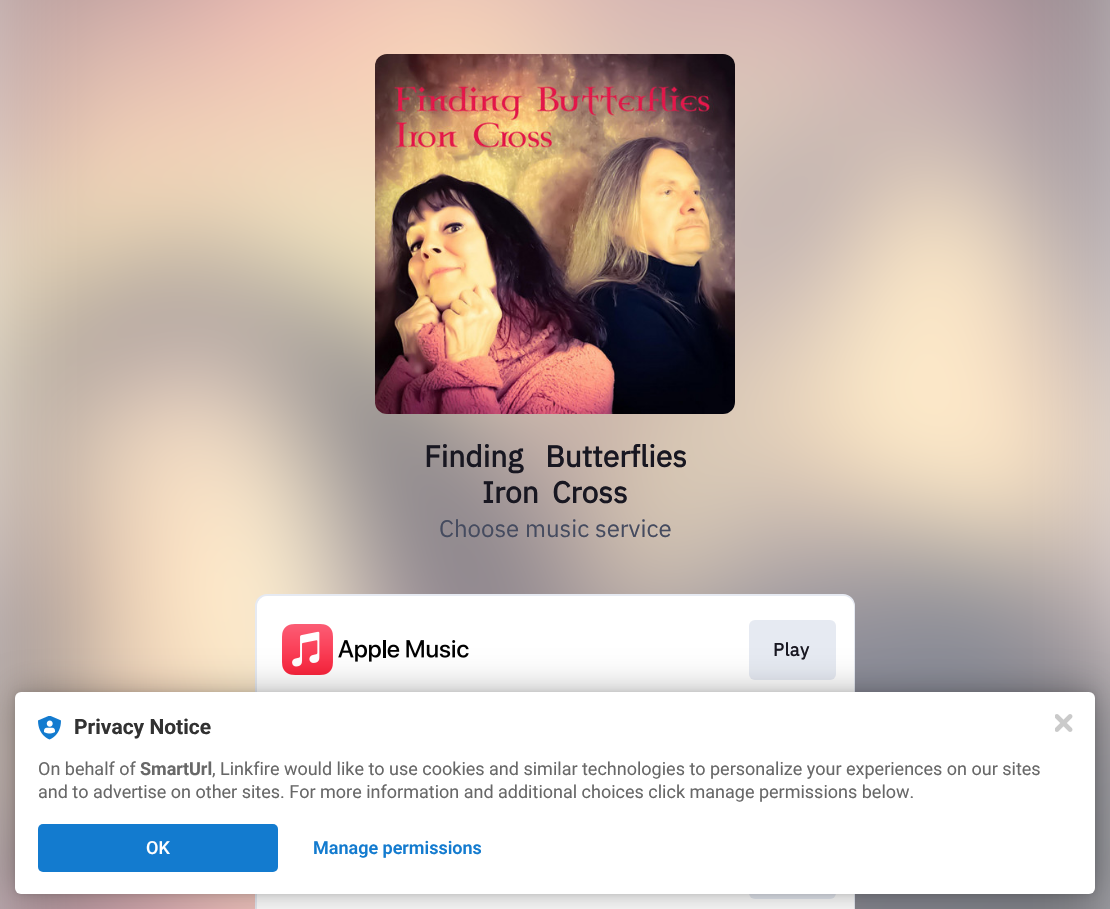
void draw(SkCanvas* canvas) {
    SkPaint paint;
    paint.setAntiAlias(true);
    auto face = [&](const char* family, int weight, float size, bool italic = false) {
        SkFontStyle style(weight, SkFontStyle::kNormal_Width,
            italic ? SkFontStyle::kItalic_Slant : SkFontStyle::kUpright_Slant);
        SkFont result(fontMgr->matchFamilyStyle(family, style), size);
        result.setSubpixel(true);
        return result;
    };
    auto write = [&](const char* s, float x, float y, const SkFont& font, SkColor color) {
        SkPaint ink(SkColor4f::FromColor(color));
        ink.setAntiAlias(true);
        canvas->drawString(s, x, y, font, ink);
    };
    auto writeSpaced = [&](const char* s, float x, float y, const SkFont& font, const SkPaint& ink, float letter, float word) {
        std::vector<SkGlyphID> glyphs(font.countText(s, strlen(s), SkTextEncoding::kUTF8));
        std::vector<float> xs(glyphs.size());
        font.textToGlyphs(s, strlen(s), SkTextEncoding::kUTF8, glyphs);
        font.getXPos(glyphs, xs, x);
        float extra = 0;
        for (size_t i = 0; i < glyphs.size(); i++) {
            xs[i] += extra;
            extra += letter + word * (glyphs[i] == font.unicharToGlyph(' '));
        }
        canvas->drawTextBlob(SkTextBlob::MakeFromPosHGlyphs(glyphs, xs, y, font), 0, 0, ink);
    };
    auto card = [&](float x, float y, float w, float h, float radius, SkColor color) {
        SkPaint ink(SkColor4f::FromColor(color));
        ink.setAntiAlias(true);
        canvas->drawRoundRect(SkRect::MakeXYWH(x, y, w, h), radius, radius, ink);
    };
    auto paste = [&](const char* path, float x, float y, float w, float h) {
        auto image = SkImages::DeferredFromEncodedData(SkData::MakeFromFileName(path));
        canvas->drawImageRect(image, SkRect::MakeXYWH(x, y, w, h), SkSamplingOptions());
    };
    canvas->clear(SK_ColorWHITE);
    paste("pic1.png", 0, 0, 1110, 909);
    paste("pic2.png", 375, 54, 360, 360);
    auto kFont1 = face("IBM Plex Sans", 700, 30);
    paint.setColor(SkColorSetRGB(24, 23, 33));
    writeSpaced("Finding Butterflies", 424, 467, kFont1, paint, 0, 15);
    writeSpaced("Iron Cross", 482, 503, kFont1, paint, 0, 6);
    auto kFont2 = face("IBM Plex Sans", 400, 24);
    write("Choose music service", 439, 537, kFont2, SkColorSetRGB(69, 75, 95));
    paint.setColor(SK_ColorWHITE);
    canvas->drawRoundRect(SkRect::MakeXYWH(256, 595, 598, 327), 11, 11, paint);
    paint.setStyle(SkPaint::kStroke_Style);
    paint.setStrokeWidth(2);
    paint.setColor(SkColorSetRGB(230, 234, 242));
    canvas->drawRoundRect(SkRect::MakeXYWH(256, 595, 598, 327), 11, 11, paint);
    card(257, 596, 597, 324, 11, SK_ColorWHITE);
    paste("pic3.png", 282, 624, 187, 51);
    card(749, 620, 87, 60, 6, SkColorSetRGB(230, 234, 242));
    auto kFont3 = face("IBM Plex Sans", 700, 18);
    paint.setStyle(SkPaint::kFill_Style);
    paint.setColor(SkColorSetRGB(24, 23, 33));
    writeSpaced("Play", 773, 656, kFont3, paint, 0.5f, 0);
    card(749, 839, 87, 60, 6, SkColorSetRGB(230, 234, 242));
    paint.setColor(SkColorSetARGB(31, 0, 0, 0));
    paint.setMaskFilter(SkMaskFilter::MakeBlur(kNormal_SkBlurStyle, 3));
    canvas->drawRoundRect(SkRect::MakeXYWH(15, 692, 1080, 202), 6, 6, paint);
    paint.setMaskFilter(nullptr);
    paint.setColor(SkColorSetARGB(77, 0, 0, 0));
    paint.setMaskFilter(SkMaskFilter::MakeBlur(kNormal_SkBlurStyle, 18));
    canvas->drawRoundRect(SkRect::MakeXYWH(15, 692, 1080, 202), 6, 6, paint);
    paint.setMaskFilter(nullptr);
    card(15, 692, 1080, 202, 6, SK_ColorWHITE);
    paste("pic4.png", 38, 716, 23, 24);
    auto kFont4 = face("Roboto", 700, 21);
    write("Privacy Notice", 74, 734, kFont4, SkColorSetRGB(50, 50, 50));
    auto kFont5 = face("Roboto", 400, 18);
    write("On behalf of", 38, 775, kFont5, SkColorSetRGB(104, 104, 104));
    auto kFont6 = face("Roboto", 700, 18);
    write("SmartUrl", 140, 775, kFont6, SkColorSetRGB(104, 104, 104));
    write(", Linkfire would like to use cookies and similar technologies to personalize your experiences on our sites", 212, 775, kFont5, SkColorSetRGB(104, 104, 104));
    write("and to advertise on other sites. For more information and additional choices click manage permissions below.", 38, 798, kFont5, SkColorSetRGB(104, 104, 104));
    card(38, 824, 240, 48, 5, SkColorSetRGB(19, 123, 207));
    auto kFont7 = face("Roboto", 500, 18);
    write("OK", 146, 854, kFont7, SK_ColorWHITE);
    auto kFont8 = face("Roboto", 600, 18);
    write("Manage permissions", 313, 854, kFont8, SkColorSetRGB(19, 123, 207));
    paste("pic5.png", 1055, 714, 18, 18);
}
